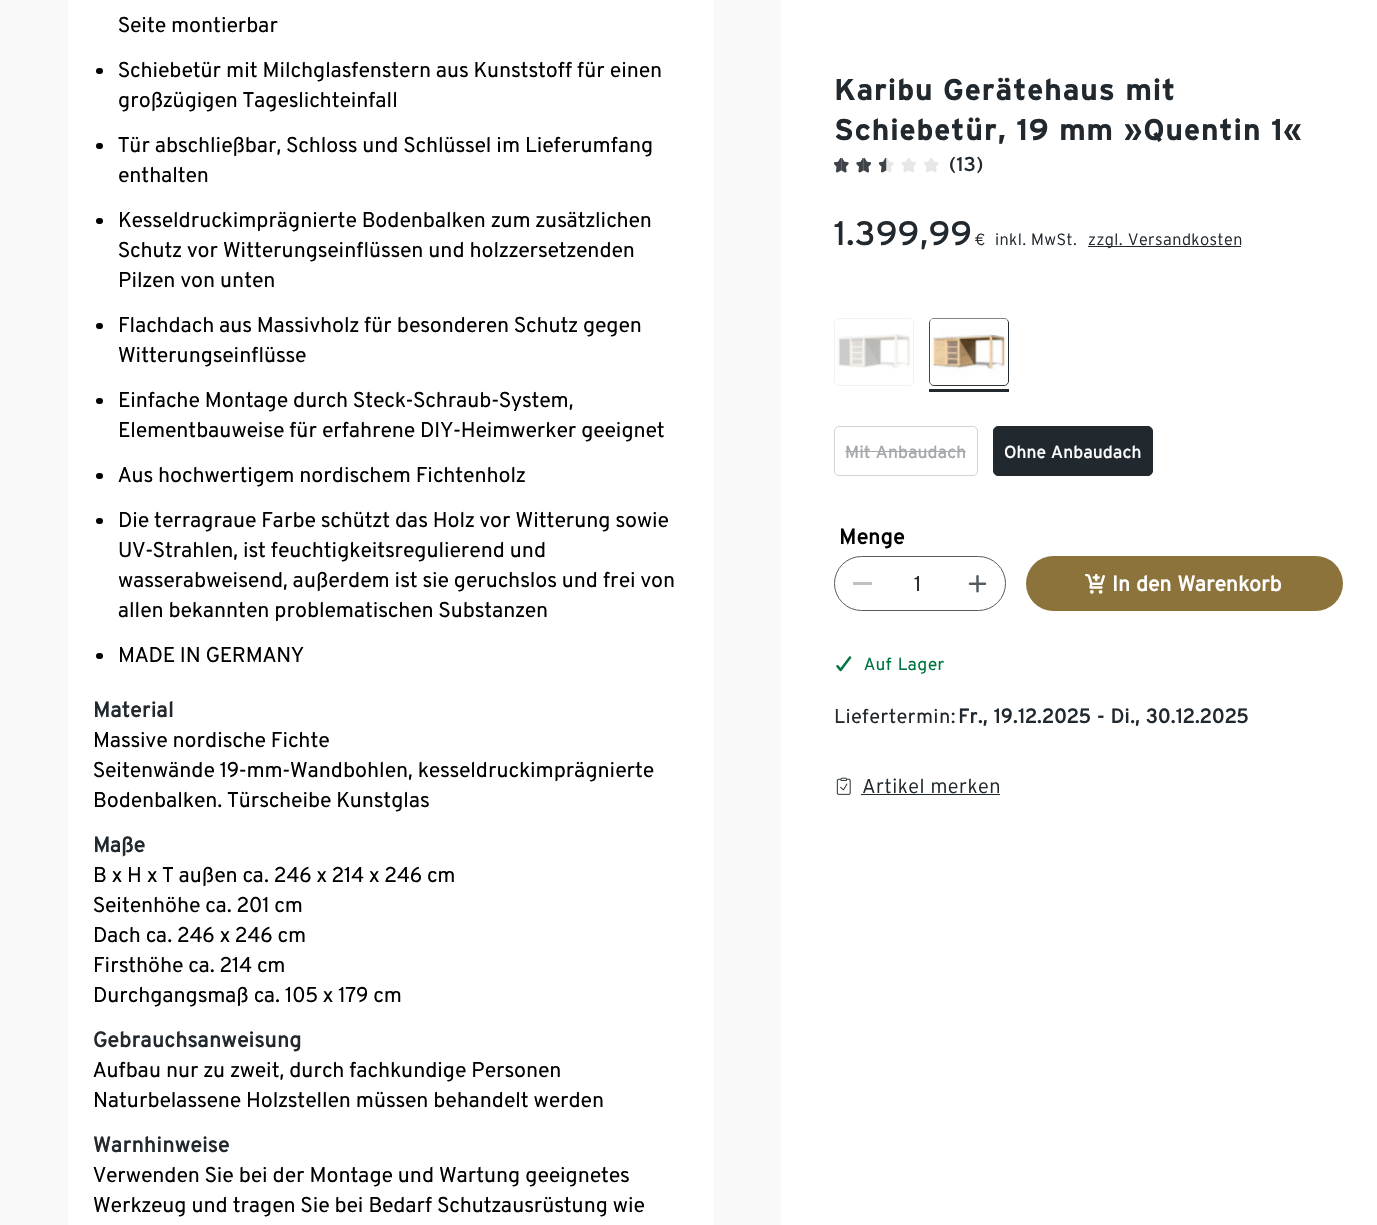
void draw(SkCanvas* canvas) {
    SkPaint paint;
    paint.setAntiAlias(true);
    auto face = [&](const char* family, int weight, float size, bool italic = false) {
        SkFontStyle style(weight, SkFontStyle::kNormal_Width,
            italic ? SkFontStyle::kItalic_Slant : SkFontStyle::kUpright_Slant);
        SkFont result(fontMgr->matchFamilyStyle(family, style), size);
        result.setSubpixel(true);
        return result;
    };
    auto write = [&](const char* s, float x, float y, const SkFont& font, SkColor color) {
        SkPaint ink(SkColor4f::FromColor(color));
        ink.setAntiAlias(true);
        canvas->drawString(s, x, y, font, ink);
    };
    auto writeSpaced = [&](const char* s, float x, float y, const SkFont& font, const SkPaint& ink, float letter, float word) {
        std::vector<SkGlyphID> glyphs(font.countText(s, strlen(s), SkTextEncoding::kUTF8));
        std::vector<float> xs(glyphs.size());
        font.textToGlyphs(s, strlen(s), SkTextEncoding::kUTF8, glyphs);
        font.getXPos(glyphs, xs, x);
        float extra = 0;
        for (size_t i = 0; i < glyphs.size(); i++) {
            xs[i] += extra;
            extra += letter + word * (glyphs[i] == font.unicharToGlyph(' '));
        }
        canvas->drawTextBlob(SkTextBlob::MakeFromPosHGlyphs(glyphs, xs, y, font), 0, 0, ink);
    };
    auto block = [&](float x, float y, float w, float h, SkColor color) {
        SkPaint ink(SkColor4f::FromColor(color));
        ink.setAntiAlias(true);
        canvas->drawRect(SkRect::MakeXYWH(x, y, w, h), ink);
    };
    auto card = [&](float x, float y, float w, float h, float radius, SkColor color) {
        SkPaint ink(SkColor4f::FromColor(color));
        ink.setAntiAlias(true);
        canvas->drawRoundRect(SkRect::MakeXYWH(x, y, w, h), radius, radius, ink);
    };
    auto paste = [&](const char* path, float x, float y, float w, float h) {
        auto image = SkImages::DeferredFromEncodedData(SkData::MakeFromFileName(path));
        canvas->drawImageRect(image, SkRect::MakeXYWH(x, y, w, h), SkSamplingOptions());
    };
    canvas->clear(SK_ColorWHITE);
    block(0, 0, 781, 1225, SkColorSetRGB(249, 249, 249));
    block(68, 0, 646, 1225, SK_ColorWHITE);
    auto kFont1 = face("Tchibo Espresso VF", 400, 21.25f);
    write("Seite montierbar", 118, 32, kFont1, SK_ColorBLACK);
    card(96, 68, 7, 6, 3, SK_ColorBLACK);
    write("Schiebetür mit Milchglasfenstern aus Kunststoff für einen", 118, 77, kFont1, SK_ColorBLACK);
    write("großzügigen Tageslichteinfall", 118, 107, kFont1, SK_ColorBLACK);
    card(96, 143, 7, 6, 3, SK_ColorBLACK);
    write("Tür abschließbar, Schloss und Schlüssel im Lieferumfang", 118, 152, kFont1, SK_ColorBLACK);
    write("enthalten", 118, 182, kFont1, SK_ColorBLACK);
    card(96, 218, 7, 6, 3, SK_ColorBLACK);
    write("Kesseldruckimprägnierte Bodenbalken zum zusätzlichen", 118, 227, kFont1, SK_ColorBLACK);
    write("Schutz vor Witterungseinflüssen und holzzersetzenden", 118, 257, kFont1, SK_ColorBLACK);
    write("Pilzen von unten", 118, 287, kFont1, SK_ColorBLACK);
    card(96, 323, 7, 6, 3, SK_ColorBLACK);
    write("Flachdach aus Massivholz für besonderen Schutz gegen", 118, 332, kFont1, SK_ColorBLACK);
    write("Witterungseinflüsse", 118, 362, kFont1, SK_ColorBLACK);
    card(96, 398, 7, 6, 3, SK_ColorBLACK);
    write("Einfache Montage durch Steck-Schraub-System,", 118, 407, kFont1, SK_ColorBLACK);
    write("Elementbauweise für erfahrene DIY-Heimwerker geeignet", 118, 437, kFont1, SK_ColorBLACK);
    card(96, 473, 7, 6, 3, SK_ColorBLACK);
    write("Aus hochwertigem nordischem Fichtenholz", 118, 482, kFont1, SK_ColorBLACK);
    card(96, 518, 7, 6, 3, SK_ColorBLACK);
    write("Die terragraue Farbe schützt das Holz vor Witterung sowie", 118, 527, kFont1, SK_ColorBLACK);
    write("UV-Strahlen, ist feuchtigkeitsregulierend und", 118, 557, kFont1, SK_ColorBLACK);
    write("wasserabweisend, außerdem ist sie geruchslos und frei von", 118, 587, kFont1, SK_ColorBLACK);
    write("allen bekannten problematischen Substanzen", 118, 617, kFont1, SK_ColorBLACK);
    card(96, 653, 7, 6, 3, SK_ColorBLACK);
    write("MADE IN GERMANY", 118, 662, kFont1, SK_ColorBLACK);
    auto kFont2 = face("Tchibo Espresso VF", 700, 21.25f);
    paint.setColor(SkColorSetRGB(33, 41, 47));
    writeSpaced("Material", 93, 717, kFont2, paint, 0.4f, 0);
    write("Massive nordische Fichte", 93, 747, kFont1, SK_ColorBLACK);
    write("Seitenwände 19-mm-Wandbohlen, kesseldruckimprägnierte", 93, 777, kFont1, SK_ColorBLACK);
    write("Bodenbalken. Türscheibe Kunstglas", 93, 807, kFont1, SK_ColorBLACK);
    write("Maße", 93, 852, kFont2, SkColorSetRGB(33, 41, 47));
    write("B x H x T außen ca. 246 x 214 x 246 cm", 93, 882, kFont1, SK_ColorBLACK);
    write("Seitenhöhe ca. 201 cm", 93, 912, kFont1, SK_ColorBLACK);
    write("Dach ca. 246 x 246 cm", 93, 942, kFont1, SK_ColorBLACK);
    write("Firsthöhe ca. 214 cm", 93, 972, kFont1, SK_ColorBLACK);
    write("Durchgangsmaß ca. 105 x 179 cm", 93, 1002, kFont1, SK_ColorBLACK);
    writeSpaced("Gebrauchsanweisung", 93, 1047, kFont2, paint, 0.4f, 0);
    write("Aufbau nur zu zweit, durch fachkundige Personen", 93, 1077, kFont1, SK_ColorBLACK);
    write("Naturbelassene Holzstellen müssen behandelt werden", 93, 1107, kFont1, SK_ColorBLACK);
    writeSpaced("Warnhinweise", 93, 1152, kFont2, paint, 0.4f, 0);
    write("Verwenden Sie bei der Montage und Wartung geeignetes", 93, 1182, kFont1, SK_ColorBLACK);
    write("Werkzeug und tragen Sie bei Bedarf Schutzausrüstung wie", 93, 1212, kFont1, SK_ColorBLACK);
    auto kFont3 = face("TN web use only", 700, 30);
    writeSpaced("Karibu Gerätehaus mit", 834, 100, kFont3, paint, 0.9f, 0);
    writeSpaced("Schiebetür, 19 mm »Quentin 1«", 834, 140, kFont3, paint, 0.9f, 0);
    paste("pic1.png", 834, 158, 15, 15);
    paste("pic2.png", 856, 158, 15, 15);
    paste("pic3.png", 879, 158, 15, 15);
    paste("pic4.png", 901, 158, 15, 15);
    paste("pic5.png", 924, 158, 15, 15);
    auto kFont4 = face("TN web use only", 400, 20);
    writeSpaced("(13)", 949, 171, kFont4, paint, 0.4f, 0);
    auto kFont5 = face("TN web use only", 400, 33.75f);
    writeSpaced("1.399,99", 834, 245, kFont5, paint, 0.4f, 0);
    auto kFont6 = face("TN web use only", 300, 16.25f);
    writeSpaced("€", 975, 245, kFont6, paint, 0.4f, 0);
    writeSpaced("inkl. MwSt.", 995, 245, kFont6, paint, 0.4f, 0);
    block(1088, 246, 153, 1, SkColorSetRGB(33, 41, 47));
    writeSpaced("zzgl. Versandkosten", 1088, 245, kFont6, paint, 0.4f, 0);
    paint.setStyle(SkPaint::kStroke_Style);
    paint.setStrokeWidth(1);
    paint.setColor(SkColorSetRGB(242, 242, 242));
    canvas->drawRoundRect(SkRect::MakeXYWH(834.5f, 318.5f, 79, 67), 4.5f, 4.5f, paint);
    paste("pic6.png", 837, 334, 74, 35);
    block(929, 389, 80, 3, SkColorSetRGB(33, 41, 47));
    paint.setColor(SkColorSetRGB(33, 41, 47));
    canvas->drawRoundRect(SkRect::MakeXYWH(929.5f, 318.5f, 79, 67), 4.5f, 4.5f, paint);
    paste("pic7.png", 929, 318, 79, 68);
    paint.setColor(SkColorSetRGB(211, 212, 213));
    canvas->drawRoundRect(SkRect::MakeXYWH(834.5f, 426.5f, 143, 49), 4.5f, 4.5f, paint);
    auto kFont7 = face("TN web use only", 400, 17.5f);
    write("Mit Anbaudach", 845, 458, kFont7, SkColorSetRGB(166, 169, 172));
    block(845, 451, 121, 1, SkColorSetRGB(166, 169, 172));
    paint.setStyle(SkPaint::kFill_Style);
    paint.setColor(SkColorSetRGB(33, 41, 47));
    canvas->drawRoundRect(SkRect::MakeXYWH(993.5f, 426.5f, 159, 49), 4.5f, 4.5f, paint);
    paint.setStyle(SkPaint::kStroke_Style);
    canvas->drawRoundRect(SkRect::MakeXYWH(993.5f, 426.5f, 159, 49), 4.5f, 4.5f, paint);
    write("Ohne Anbaudach", 1004, 458, kFont7, SK_ColorWHITE);
    paint.setStyle(SkPaint::kFill_Style);
    paint.setColor(SK_ColorBLACK);
    writeSpaced("Menge", 839, 544, kFont2, paint, 0.4f, 0);
    paint.setStyle(SkPaint::kStroke_Style);
    paint.setColor(SkColorSetRGB(84, 92, 99));
    canvas->drawRoundRect(SkRect::MakeXYWH(834.5f, 556.5f, 171, 54), 27, 27, paint);
    block(853, 582, 19, 3, SkColorSetRGB(193, 193, 193));
    write("1", 914, 591, kFont1, SkColorSetRGB(33, 41, 47));
    paste("pic8.png", 968, 575, 19, 18);
    card(1026, 556, 317, 55, 27.5f, SkColorSetRGB(140, 114, 59));
    paste("pic9.png", 1085, 574, 20, 20);
    paint.setStyle(SkPaint::kFill_Style);
    paint.setColor(SK_ColorWHITE);
    writeSpaced("In den Warenkorb", 1112, 591, kFont2, paint, 0, 1);
    paste("pic10.png", 836, 656, 16, 16);
    auto kFont8 = face("Tchibo Espresso VF", 400, 17.5f);
    paint.setColor(SkColorSetRGB(0, 117, 63));
    writeSpaced("Auf Lager", 864, 670, kFont8, paint, 0.4f, 1);
    auto kFont9 = face("Tchibo Espresso VF", 400, 20);
    paint.setColor(SkColorSetRGB(33, 41, 47));
    writeSpaced("Liefertermin:", 834, 723, kFont9, paint, 0.4f, 0);
    auto kFont10 = face("Tchibo Espresso VF", 700, 20);
    writeSpaced("Fr., 19.12.2025 - Di., 30.12.2025", 958, 723, kFont10, paint, 0.4f, 1);
    paste("pic11.png", 836, 777, 15, 18);
    auto kFont11 = face("TN web use only", 300, 20);
    writeSpaced("Artikel merken", 862, 793, kFont11, paint, 0.4f, 0);
    block(861, 794, 139, 1, SkColorSetRGB(33, 41, 47));
}
